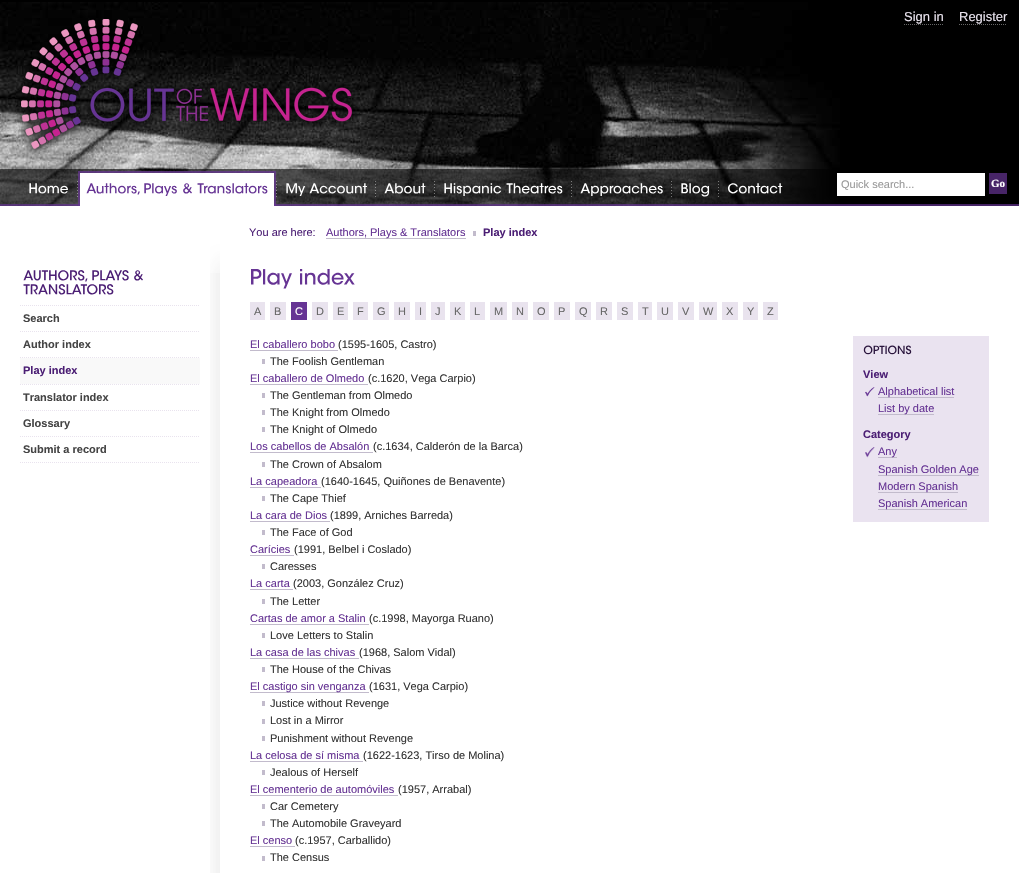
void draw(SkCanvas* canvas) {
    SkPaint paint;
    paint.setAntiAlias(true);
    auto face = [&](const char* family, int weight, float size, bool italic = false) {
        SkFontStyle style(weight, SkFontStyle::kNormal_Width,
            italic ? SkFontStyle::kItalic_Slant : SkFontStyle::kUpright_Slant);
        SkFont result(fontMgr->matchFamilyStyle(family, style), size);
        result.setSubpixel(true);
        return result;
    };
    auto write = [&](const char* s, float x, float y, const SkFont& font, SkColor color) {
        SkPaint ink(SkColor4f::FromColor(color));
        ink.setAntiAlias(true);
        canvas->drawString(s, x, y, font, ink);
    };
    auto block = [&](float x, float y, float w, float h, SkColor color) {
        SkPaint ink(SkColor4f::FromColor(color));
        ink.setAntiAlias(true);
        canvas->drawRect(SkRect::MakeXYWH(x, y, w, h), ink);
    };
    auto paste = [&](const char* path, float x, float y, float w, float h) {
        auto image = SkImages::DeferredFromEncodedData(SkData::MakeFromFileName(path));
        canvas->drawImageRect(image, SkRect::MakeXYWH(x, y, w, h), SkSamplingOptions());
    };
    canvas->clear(SK_ColorBLACK);
    paste("pic1.png", 0, 2, 840, 204);
    auto kFont1 = face("Liberation Sans", 400, 13);
    write("Sign in", 904, 21, kFont1, SkColorSetRGB(233, 227, 238));
    paint.setStyle(SkPaint::kStroke_Style);
    paint.setStrokeWidth(1);
    paint.setColor(SkColorSetRGB(102, 102, 102));
    paint.setPathEffect(SkDashPathEffect::Make({{1, 1}}, 0));
    canvas->drawPath(SkPathBuilder().moveTo(904, 24.5f).lineTo(944, 24.5f).detach(), paint);
    paint.setPathEffect(nullptr);
    write("Register", 959, 21, kFont1, SkColorSetRGB(233, 227, 238));
    paint.setPathEffect(SkDashPathEffect::Make({{1, 1}}, 0));
    canvas->drawPath(SkPathBuilder().moveTo(959, 24.5f).lineTo(1007, 24.5f).detach(), paint);
    paint.setPathEffect(nullptr);
    paste("pic2.png", 15, 19, 343, 137);
    paste("pic3.png", 0, 169, 1019, 37);
    paste("pic4.png", 77, 181, 1, 16);
    paste("pic5.png", 29, 183, 39, 11);
    paste("pic6.png", 276, 181, 1, 16);
    block(78, 171, 198, 35, SkColorSetARGB(179, 103, 53, 148));
    block(80, 173, 194, 33, SK_ColorWHITE);
    paste("pic7.png", 86, 183, 54, 12);
    paste("pic8.png", 144, 183, 33, 13);
    paste("pic9.png", 183, 183, 9, 11);
    paste("pic10.png", 197, 183, 71, 11);
    paste("pic11.png", 375, 181, 1, 16);
    paste("pic12.png", 286, 183, 19, 13);
    paste("pic13.png", 309, 183, 58, 11);
    paste("pic14.png", 434, 181, 1, 16);
    paste("pic15.png", 384, 183, 42, 11);
    paste("pic16.png", 571, 181, 1, 16);
    paste("pic17.png", 444, 183, 58, 13);
    paste("pic18.png", 506, 183, 57, 11);
    paste("pic19.png", 671, 181, 1, 16);
    paste("pic20.png", 580, 183, 83, 13);
    paste("pic21.png", 718, 181, 1, 16);
    paste("pic22.png", 681, 183, 29, 14);
    paste("pic23.png", 727, 183, 56, 11);
    block(837, 173, 148, 23, SK_ColorWHITE);
    block(989, 173, 18, 21, SkColorSetRGB(72, 37, 104));
    auto kFont2 = face("Liberation Serif", 700, 11);
    write("Go", 991, 187, kFont2, SK_ColorWHITE);
    auto kFont3 = face("Liberation Sans", 400, 11);
    write("Quick search...", 841, 188, kFont3, SkColorSetRGB(153, 153, 153));
    block(0, 206, 1019, 667, SK_ColorWHITE);
    write("You are here:", 249, 236, kFont3, SkColorSetRGB(75, 30, 116));
    block(473, 231, 3, 5, SkColorSetRGB(194, 187, 204));
    block(326, 238, 140, 1, SkColorSetRGB(194, 187, 204));
    write("Authors, Plays & Translators", 326, 236, kFont3, SkColorSetRGB(102, 52, 148));
    auto kFont4 = face("Liberation Sans", 700, 11);
    write("Play index", 483, 236, kFont4, SkColorSetRGB(75, 30, 116));
    paste("pic24.png", 210, 273, 10, 600);
    paste("pic25.png", 210, 241, 10, 32);
    paste("pic26.png", 23, 270, 65, 12);
    paste("pic27.png", 92, 270, 37, 11);
    paste("pic28.png", 134, 270, 9, 11);
    paste("pic29.png", 23, 284, 91, 11);
    paint.setColor(SkColorSetRGB(233, 227, 238));
    paint.setPathEffect(SkDashPathEffect::Make({{1, 1}}, 0));
    canvas->drawPath(SkPathBuilder().moveTo(20, 305.5f).lineTo(200, 305.5f).detach(), paint);
    paint.setPathEffect(nullptr);
    paint.setPathEffect(SkDashPathEffect::Make({{1, 1}}, 0));
    canvas->drawPath(SkPathBuilder().moveTo(20, 331.5f).lineTo(200, 331.5f).detach(), paint);
    paint.setPathEffect(nullptr);
    write("Search", 23, 322, kFont4, SkColorSetRGB(68, 68, 68));
    paint.setPathEffect(SkDashPathEffect::Make({{1, 1}}, 0));
    canvas->drawPath(SkPathBuilder().moveTo(20, 357.5f).lineTo(200, 357.5f).detach(), paint);
    paint.setPathEffect(nullptr);
    write("Author index", 23, 348, kFont4, SkColorSetRGB(68, 68, 68));
    paint.setPathEffect(SkDashPathEffect::Make({{1, 1}}, 0));
    canvas->drawPath(SkPathBuilder().moveTo(20, 384.5f).lineTo(200, 384.5f).detach(), paint);
    paint.setPathEffect(nullptr);
    block(20, 358, 180, 26, SkColorSetRGB(249, 249, 249));
    write("Play index", 23, 374, kFont4, SkColorSetRGB(75, 30, 116));
    paint.setPathEffect(SkDashPathEffect::Make({{1, 1}}, 0));
    canvas->drawPath(SkPathBuilder().moveTo(20, 410.5f).lineTo(200, 410.5f).detach(), paint);
    paint.setPathEffect(nullptr);
    write("Translator index", 23, 401, kFont4, SkColorSetRGB(68, 68, 68));
    paint.setPathEffect(SkDashPathEffect::Make({{1, 1}}, 0));
    canvas->drawPath(SkPathBuilder().moveTo(20, 436.5f).lineTo(200, 436.5f).detach(), paint);
    paint.setPathEffect(nullptr);
    write("Glossary", 23, 427, kFont4, SkColorSetRGB(68, 68, 68));
    paint.setPathEffect(SkDashPathEffect::Make({{1, 1}}, 0));
    canvas->drawPath(SkPathBuilder().moveTo(20, 462.5f).lineTo(200, 462.5f).detach(), paint);
    paint.setPathEffect(nullptr);
    write("Submit a record", 23, 453, kFont4, SkColorSetRGB(68, 68, 68));
    paste("pic30.png", 251, 269, 41, 20);
    paste("pic31.png", 300, 269, 55, 16);
    block(250, 302, 15, 18, SkColorSetRGB(233, 227, 238));
    write("A", 254, 315, kFont3, SkColorSetRGB(102, 102, 102));
    block(270, 302, 16, 18, SkColorSetRGB(233, 227, 238));
    write("B", 274, 315, kFont3, SkColorSetRGB(102, 102, 102));
    block(291, 302, 16, 18, SkColorSetRGB(102, 52, 148));
    write("C", 295, 315, kFont3, SK_ColorWHITE);
    block(312, 302, 16, 18, SkColorSetRGB(233, 227, 238));
    write("D", 316, 315, kFont3, SkColorSetRGB(102, 102, 102));
    block(333, 302, 15, 18, SkColorSetRGB(233, 227, 238));
    write("E", 337, 315, kFont3, SkColorSetRGB(102, 102, 102));
    block(353, 302, 15, 18, SkColorSetRGB(233, 227, 238));
    write("F", 357, 315, kFont3, SkColorSetRGB(102, 102, 102));
    block(373, 302, 16, 18, SkColorSetRGB(233, 227, 238));
    write("G", 377, 315, kFont3, SkColorSetRGB(102, 102, 102));
    block(394, 302, 16, 18, SkColorSetRGB(233, 227, 238));
    write("H", 398, 315, kFont3, SkColorSetRGB(102, 102, 102));
    block(415, 302, 11, 18, SkColorSetRGB(233, 227, 238));
    write("I", 419, 315, kFont3, SkColorSetRGB(102, 102, 102));
    block(431, 302, 14, 18, SkColorSetRGB(233, 227, 238));
    write("J", 435, 315, kFont3, SkColorSetRGB(102, 102, 102));
    block(450, 302, 15, 18, SkColorSetRGB(233, 227, 238));
    write("K", 454, 315, kFont3, SkColorSetRGB(102, 102, 102));
    block(470, 302, 15, 18, SkColorSetRGB(233, 227, 238));
    write("L", 474, 315, kFont3, SkColorSetRGB(102, 102, 102));
    block(490, 302, 17, 18, SkColorSetRGB(233, 227, 238));
    write("M", 494, 315, kFont3, SkColorSetRGB(102, 102, 102));
    block(512, 302, 16, 18, SkColorSetRGB(233, 227, 238));
    write("N", 516, 315, kFont3, SkColorSetRGB(102, 102, 102));
    block(533, 302, 16, 18, SkColorSetRGB(233, 227, 238));
    write("O", 537, 315, kFont3, SkColorSetRGB(102, 102, 102));
    block(554, 302, 16, 18, SkColorSetRGB(233, 227, 238));
    write("P", 558, 315, kFont3, SkColorSetRGB(102, 102, 102));
    block(575, 302, 16, 18, SkColorSetRGB(233, 227, 238));
    write("Q", 579, 315, kFont3, SkColorSetRGB(102, 102, 102));
    block(596, 302, 16, 18, SkColorSetRGB(233, 227, 238));
    write("R", 600, 315, kFont3, SkColorSetRGB(102, 102, 102));
    block(617, 302, 16, 18, SkColorSetRGB(233, 227, 238));
    write("S", 621, 315, kFont3, SkColorSetRGB(102, 102, 102));
    block(638, 302, 14, 18, SkColorSetRGB(233, 227, 238));
    write("T", 642, 315, kFont3, SkColorSetRGB(102, 102, 102));
    block(657, 302, 16, 18, SkColorSetRGB(233, 227, 238));
    write("U", 661, 315, kFont3, SkColorSetRGB(102, 102, 102));
    block(678, 302, 16, 18, SkColorSetRGB(233, 227, 238));
    write("V", 682, 315, kFont3, SkColorSetRGB(102, 102, 102));
    block(699, 302, 18, 18, SkColorSetRGB(233, 227, 238));
    write("W", 703, 315, kFont3, SkColorSetRGB(102, 102, 102));
    block(722, 302, 16, 18, SkColorSetRGB(233, 227, 238));
    write("X", 726, 315, kFont3, SkColorSetRGB(102, 102, 102));
    block(743, 302, 15, 18, SkColorSetRGB(233, 227, 238));
    write("Y", 747, 315, kFont3, SkColorSetRGB(102, 102, 102));
    block(763, 302, 15, 18, SkColorSetRGB(233, 227, 238));
    write("Z", 767, 315, kFont3, SkColorSetRGB(102, 102, 102));
    write("El caballero bobo", 250, 348, kFont3, SkColorSetRGB(102, 52, 148));
    block(250, 350, 88, 1, SkColorSetRGB(194, 187, 204));
    write("(1595-1605, Castro)", 338, 348, kFont3, SkColorSetRGB(51, 51, 51));
    block(262, 359, 3, 5, SkColorSetRGB(194, 187, 204));
    write("The Foolish Gentleman", 270, 365, kFont3, SkColorSetRGB(51, 51, 51));
    write("El caballero de Olmedo", 250, 382, kFont3, SkColorSetRGB(102, 52, 148));
    block(250, 384, 118, 1, SkColorSetRGB(194, 187, 204));
    write("(c.1620, Vega Carpio)", 368, 382, kFont3, SkColorSetRGB(51, 51, 51));
    block(262, 393, 3, 5, SkColorSetRGB(194, 187, 204));
    write("The Gentleman from Olmedo", 270, 399, kFont3, SkColorSetRGB(51, 51, 51));
    block(262, 410, 3, 5, SkColorSetRGB(194, 187, 204));
    write("The Knight from Olmedo", 270, 416, kFont3, SkColorSetRGB(51, 51, 51));
    block(262, 427, 3, 5, SkColorSetRGB(194, 187, 204));
    write("The Knight of Olmedo", 270, 433, kFont3, SkColorSetRGB(51, 51, 51));
    write("Los cabellos de Absalón", 250, 450, kFont3, SkColorSetRGB(102, 52, 148));
    block(250, 452, 123, 1, SkColorSetRGB(194, 187, 204));
    write("(c.1634, Calderón de la Barca)", 373, 450, kFont3, SkColorSetRGB(51, 51, 51));
    block(262, 462, 3, 5, SkColorSetRGB(194, 187, 204));
    write("The Crown of Absalom", 270, 468, kFont3, SkColorSetRGB(51, 51, 51));
    block(250, 487, 71, 1, SkColorSetRGB(194, 187, 204));
    write("La capeadora", 250, 485, kFont3, SkColorSetRGB(102, 52, 148));
    write("(1640-1645, Quiñones de Benavente)", 321, 485, kFont3, SkColorSetRGB(51, 51, 51));
    block(262, 496, 3, 5, SkColorSetRGB(194, 187, 204));
    write("The Cape Thief", 270, 502, kFont3, SkColorSetRGB(51, 51, 51));
    write("La cara de Dios", 250, 519, kFont3, SkColorSetRGB(102, 52, 148));
    block(250, 521, 80, 1, SkColorSetRGB(194, 187, 204));
    write("(1899, Arniches Barreda)", 330, 519, kFont3, SkColorSetRGB(51, 51, 51));
    block(262, 530, 3, 5, SkColorSetRGB(194, 187, 204));
    write("The Face of God", 270, 536, kFont3, SkColorSetRGB(51, 51, 51));
    write("Carícies", 250, 553, kFont3, SkColorSetRGB(102, 52, 148));
    block(250, 555, 44, 1, SkColorSetRGB(194, 187, 204));
    write("(1991, Belbel i Coslado)", 294, 553, kFont3, SkColorSetRGB(51, 51, 51));
    block(262, 564, 3, 5, SkColorSetRGB(194, 187, 204));
    write("Caresses", 270, 570, kFont3, SkColorSetRGB(51, 51, 51));
    write("La carta", 250, 587, kFont3, SkColorSetRGB(102, 52, 148));
    block(250, 589, 43, 1, SkColorSetRGB(194, 187, 204));
    write("(2003, González Cruz)", 293, 587, kFont3, SkColorSetRGB(51, 51, 51));
    block(262, 599, 3, 5, SkColorSetRGB(194, 187, 204));
    write("The Letter", 270, 605, kFont3, SkColorSetRGB(51, 51, 51));
    write("Cartas de amor a Stalin", 250, 622, kFont3, SkColorSetRGB(102, 52, 148));
    block(250, 624, 119, 1, SkColorSetRGB(194, 187, 204));
    write("(c.1998, Mayorga Ruano)", 369, 622, kFont3, SkColorSetRGB(51, 51, 51));
    block(262, 633, 3, 5, SkColorSetRGB(194, 187, 204));
    write("Love Letters to Stalin", 270, 639, kFont3, SkColorSetRGB(51, 51, 51));
    write("La casa de las chivas", 250, 656, kFont3, SkColorSetRGB(102, 52, 148));
    block(250, 658, 109, 1, SkColorSetRGB(194, 187, 204));
    write("(1968, Salom Vidal)", 359, 656, kFont3, SkColorSetRGB(51, 51, 51));
    block(262, 667, 3, 5, SkColorSetRGB(194, 187, 204));
    write("The House of the Chivas", 270, 673, kFont3, SkColorSetRGB(51, 51, 51));
    block(250, 692, 119, 1, SkColorSetRGB(194, 187, 204));
    write("El castigo sin venganza", 250, 690, kFont3, SkColorSetRGB(102, 52, 148));
    write("(1631, Vega Carpio)", 369, 690, kFont3, SkColorSetRGB(51, 51, 51));
    block(262, 701, 3, 5, SkColorSetRGB(194, 187, 204));
    write("Justice without Revenge", 270, 707, kFont3, SkColorSetRGB(51, 51, 51));
    block(262, 719, 3, 5, SkColorSetRGB(194, 187, 204));
    write("Lost in a Mirror", 270, 724, kFont3, SkColorSetRGB(51, 51, 51));
    block(262, 736, 3, 5, SkColorSetRGB(194, 187, 204));
    write("Punishment without Revenge", 270, 742, kFont3, SkColorSetRGB(51, 51, 51));
    write("La celosa de sí misma", 250, 759, kFont3, SkColorSetRGB(102, 52, 148));
    block(250, 761, 113, 1, SkColorSetRGB(194, 187, 204));
    write("(1622-1623, Tirso de Molina)", 363, 759, kFont3, SkColorSetRGB(51, 51, 51));
    block(262, 770, 3, 5, SkColorSetRGB(194, 187, 204));
    write("Jealous of Herself", 270, 776, kFont3, SkColorSetRGB(51, 51, 51));
    write("El cementerio de automóviles", 250, 793, kFont3, SkColorSetRGB(102, 52, 148));
    block(250, 795, 148, 1, SkColorSetRGB(194, 187, 204));
    write("(1957, Arrabal)", 398, 793, kFont3, SkColorSetRGB(51, 51, 51));
    block(262, 804, 3, 5, SkColorSetRGB(194, 187, 204));
    write("Car Cemetery", 270, 810, kFont3, SkColorSetRGB(51, 51, 51));
    block(262, 821, 3, 5, SkColorSetRGB(194, 187, 204));
    write("The Automobile Graveyard", 270, 827, kFont3, SkColorSetRGB(51, 51, 51));
    write("El censo", 250, 844, kFont3, SkColorSetRGB(102, 52, 148));
    block(250, 846, 45, 1, SkColorSetRGB(194, 187, 204));
    write("(c.1957, Carballido)", 295, 844, kFont3, SkColorSetRGB(51, 51, 51));
    block(262, 856, 3, 5, SkColorSetRGB(194, 187, 204));
    write("The Census", 270, 861, kFont3, SkColorSetRGB(51, 51, 51));
    block(853, 336, 136, 186, SkColorSetRGB(234, 227, 240));
    paste("pic32.png", 863, 345, 49, 10);
    write("View", 863, 378, kFont4, SkColorSetRGB(75, 30, 116));
    paste("pic33.png", 865, 387, 10, 10);
    block(878, 397, 76, 1, SkColorSetRGB(194, 187, 204));
    write("Alphabetical list", 878, 395, kFont3, SkColorSetRGB(102, 52, 148));
    block(878, 414, 56, 1, SkColorSetRGB(194, 187, 204));
    write("List by date", 878, 412, kFont3, SkColorSetRGB(102, 52, 148));
    write("Category", 863, 438, kFont4, SkColorSetRGB(75, 30, 116));
    paste("pic34.png", 865, 447, 10, 11);
    block(878, 457, 19, 1, SkColorSetRGB(194, 187, 204));
    write("Any", 878, 455, kFont3, SkColorSetRGB(102, 52, 148));
    block(878, 475, 101, 1, SkColorSetRGB(194, 187, 204));
    write("Spanish Golden Age", 878, 473, kFont3, SkColorSetRGB(102, 52, 148));
    block(878, 492, 80, 1, SkColorSetRGB(194, 187, 204));
    write("Modern Spanish", 878, 490, kFont3, SkColorSetRGB(102, 52, 148));
    block(878, 509, 89, 1, SkColorSetRGB(194, 187, 204));
    write("Spanish American", 878, 507, kFont3, SkColorSetRGB(102, 52, 148));
}
